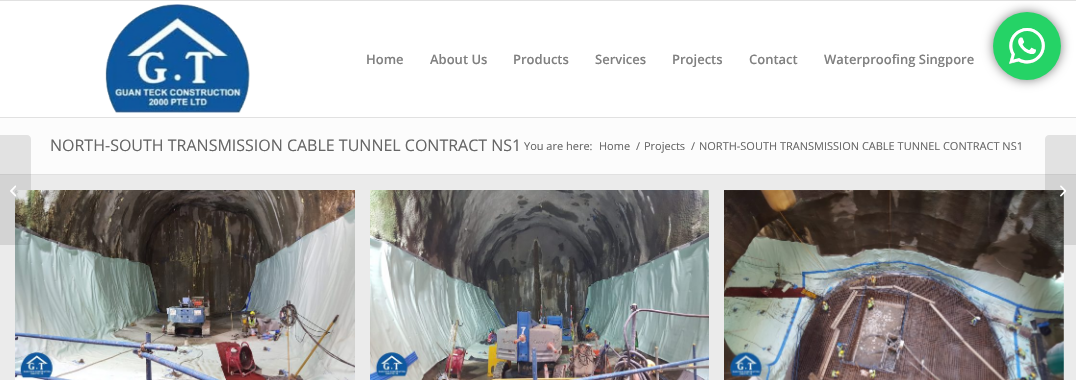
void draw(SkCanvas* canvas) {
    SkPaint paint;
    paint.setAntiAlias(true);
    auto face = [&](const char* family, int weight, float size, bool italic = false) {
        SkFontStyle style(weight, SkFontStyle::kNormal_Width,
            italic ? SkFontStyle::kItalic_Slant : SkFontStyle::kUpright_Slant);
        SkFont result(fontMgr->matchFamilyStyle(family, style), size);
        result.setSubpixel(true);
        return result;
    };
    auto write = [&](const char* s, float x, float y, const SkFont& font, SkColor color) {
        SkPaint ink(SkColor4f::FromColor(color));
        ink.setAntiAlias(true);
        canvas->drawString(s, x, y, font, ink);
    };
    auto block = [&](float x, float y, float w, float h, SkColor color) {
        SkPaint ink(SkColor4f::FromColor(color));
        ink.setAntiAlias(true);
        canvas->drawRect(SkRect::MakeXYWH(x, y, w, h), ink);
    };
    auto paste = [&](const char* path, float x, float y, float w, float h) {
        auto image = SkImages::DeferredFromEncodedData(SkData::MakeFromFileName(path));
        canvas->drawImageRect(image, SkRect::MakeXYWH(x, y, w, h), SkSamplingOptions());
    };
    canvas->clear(SK_ColorWHITE);
    block(0, 0, 1076, 1, SkColorSetRGB(225, 225, 225));
    block(0, 117, 1076, 1, SkColorSetRGB(225, 225, 225));
    paste("pic1.png", 105, 4, 145, 109);
    auto kFont1 = face("Open Sans", 600, 13);
    write("Home", 366, 64, kFont1, SkColorSetRGB(128, 128, 128));
    write("About Us", 430, 64, kFont1, SkColorSetRGB(128, 128, 128));
    write("Products", 513, 64, kFont1, SkColorSetRGB(128, 128, 128));
    write("Services", 595, 64, kFont1, SkColorSetRGB(128, 128, 128));
    write("Projects", 672, 64, kFont1, SkColorSetRGB(128, 128, 128));
    write("Contact", 749, 64, kFont1, SkColorSetRGB(128, 128, 128));
    write("Waterproofing Singpore", 824, 64, kFont1, SkColorSetRGB(128, 128, 128));
    block(0, 118, 1076, 56, SkColorSetRGB(252, 252, 252));
    block(0, 174, 1076, 1, SkColorSetRGB(225, 225, 225));
    block(0, 175, 1076, 205, SkColorSetRGB(235, 235, 235));
    paste("pic3.png", 15, 190, 340, 190);
    paint.setColor(SkColorSetARGB(26, 0, 0, 0));
    canvas->drawPath(SkPathBuilder().moveTo(0, 135).lineTo(27, 135).cubicTo(29, 135, 31, 137, 31, 139).lineTo(31, 241).cubicTo(31, 243, 29, 245, 27, 245).lineTo(0, 245).close().detach(), paint);
    paste("pic2.png", 10, 185, 6, 12);
    auto kFont2 = face("Open Sans", 400, 16);
    write("NORTH-SOUTH TRANSMISSION CABLE TUNNEL CONTRACT NS1", 50, 151, kFont2, SkColorSetRGB(102, 102, 102));
    auto kFont3 = face("Open Sans", 400, 11);
    write("You are here:", 524, 150, kFont3, SkColorSetRGB(102, 102, 102));
    write("Home", 599, 150, kFont3, SkColorSetRGB(102, 102, 102));
    write("/", 636, 150, kFont3, SkColorSetRGB(102, 102, 102));
    write("Projects", 644, 150, kFont3, SkColorSetRGB(102, 102, 102));
    write("/", 691, 150, kFont3, SkColorSetRGB(102, 102, 102));
    write("NORTH-SOUTH TRANSMISSION CABLE TUNNEL CONTRACT NS1", 699, 150, kFont3, SkColorSetRGB(102, 102, 102));
    paste("pic4.png", 370, 190, 339, 190);
    paste("pic5.png", 724, 190, 340, 190);
    canvas->drawPath(SkPathBuilder().moveTo(1049, 135).lineTo(1076, 135).lineTo(1076, 245).lineTo(1049, 245).cubicTo(1047, 245, 1045, 243, 1045, 241).lineTo(1045, 139).cubicTo(1045, 137, 1047, 135, 1049, 135).close().detach(), paint);
    paste("pic6.png", 1060, 185, 6, 12);
    paint.setColor(SkColorSetARGB(128, 0, 0, 0));
    paint.setMaskFilter(SkMaskFilter::MakeBlur(kNormal_SkBlurStyle, 5.5f));
    canvas->drawRoundRect(SkRect::MakeXYWH(993, 12, 68, 68), 34, 34, paint);
    paint.setMaskFilter(nullptr);
    paint.setColor(SkColorSetRGB(37, 211, 102));
    canvas->drawCircle(1027, 46, 34, paint);
    paste("pic7.png", 1009, 28, 36, 36);
}
